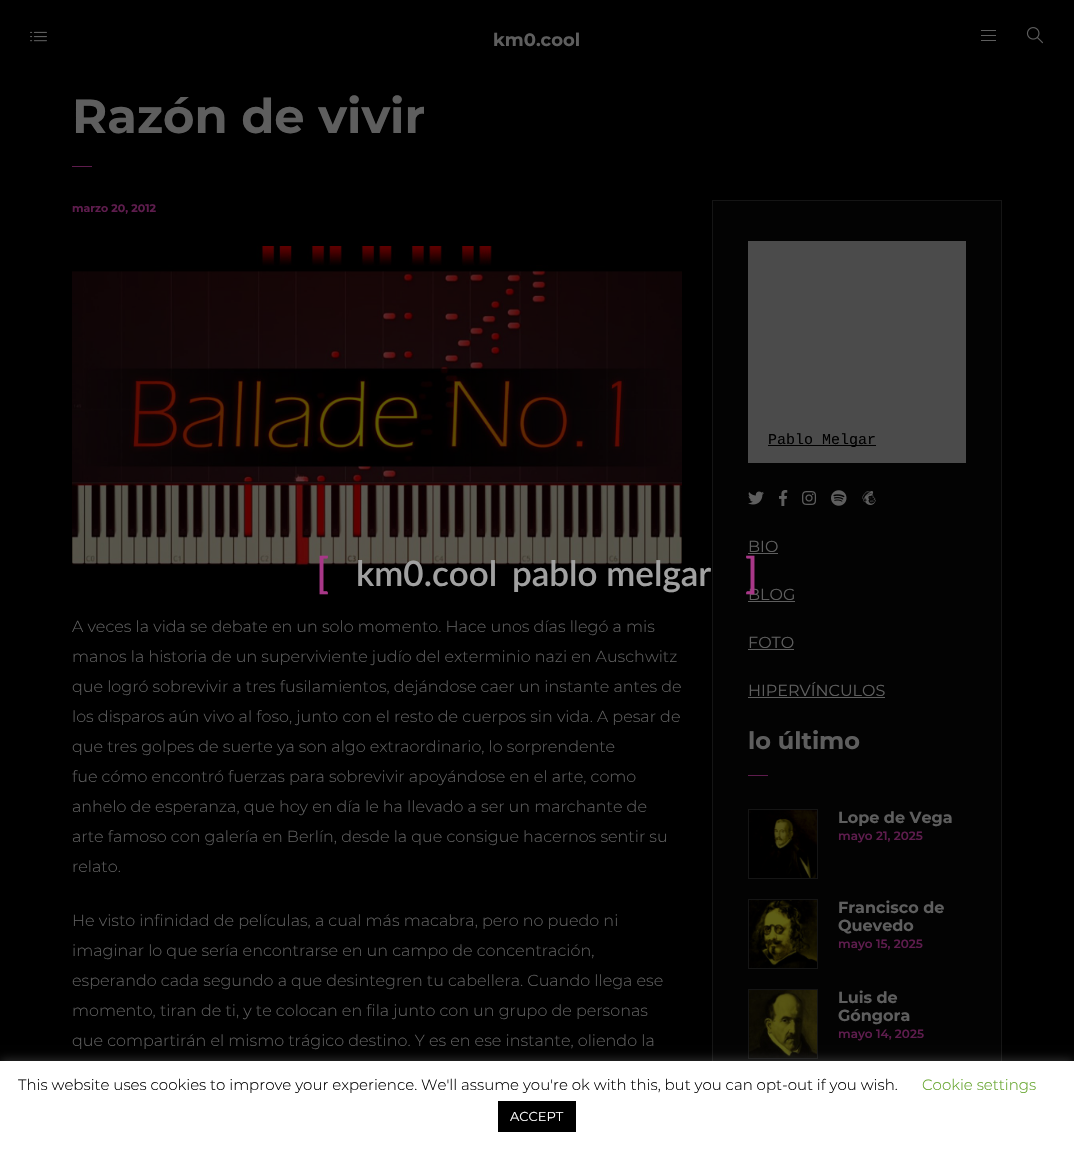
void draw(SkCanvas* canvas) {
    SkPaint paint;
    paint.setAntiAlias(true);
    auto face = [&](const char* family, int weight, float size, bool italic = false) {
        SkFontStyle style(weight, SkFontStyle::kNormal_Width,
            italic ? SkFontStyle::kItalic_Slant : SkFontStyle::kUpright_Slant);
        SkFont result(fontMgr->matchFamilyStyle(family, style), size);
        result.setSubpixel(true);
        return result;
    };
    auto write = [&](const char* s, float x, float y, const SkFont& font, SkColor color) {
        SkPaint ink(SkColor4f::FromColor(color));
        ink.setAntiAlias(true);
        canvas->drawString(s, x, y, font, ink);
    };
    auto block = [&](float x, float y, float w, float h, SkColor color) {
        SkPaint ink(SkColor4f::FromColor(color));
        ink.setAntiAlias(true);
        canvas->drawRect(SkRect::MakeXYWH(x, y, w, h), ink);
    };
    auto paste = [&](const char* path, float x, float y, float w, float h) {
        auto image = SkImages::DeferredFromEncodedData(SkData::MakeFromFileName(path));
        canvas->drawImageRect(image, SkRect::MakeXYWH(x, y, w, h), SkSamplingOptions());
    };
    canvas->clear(SK_ColorBLACK);
    paste("pic1.png", 30, 31, 17, 11);
    auto kFont1 = face("Montserrat", 700, 18);
    write("km0.cool", 493, 46, kFont1, SkColorSetRGB(94, 94, 94));
    block(981, 30, 15, 1, SkColorSetRGB(94, 94, 94));
    block(981, 35, 15, 1, SkColorSetRGB(94, 94, 94));
    block(981, 40, 15, 1, SkColorSetRGB(94, 94, 94));
    paste("pic2.png", 1026, 27, 17, 17);
    auto kFont2 = face("Montserrat", 700, 48);
    write("Razón de vivir", 72, 133, kFont2, SkColorSetRGB(94, 94, 94));
    block(72, 166, 20, 1, SkColorSetRGB(94, 28, 77));
    auto kFont3 = face("Montserrat", 700, 11);
    write("marzo 20, 2012", 72, 212, kFont3, SkColorSetRGB(94, 28, 77));
    paste("pic3.png", 72, 246, 610, 324);
    auto kFont4 = face("Montserrat", 300, 16);
    write("A veces la vida se debate en un solo momento. Hace unos días llegó a mis", 72, 632, kFont4, SkColorSetRGB(94, 94, 94));
    write("manos la historia de un superviviente judío del exterminio nazi en Auschwitz", 72, 662, kFont4, SkColorSetRGB(94, 94, 94));
    write("que logró sobrevivir a tres fusilamientos, dejándose caer un instante antes de", 72, 692, kFont4, SkColorSetRGB(94, 94, 94));
    write("los disparos aún vivo al foso, junto con el resto de cuerpos sin vida. A pesar de", 72, 722, kFont4, SkColorSetRGB(94, 94, 94));
    write("que tres golpes de suerte ya son algo extraordinario, lo sorprendente", 72, 752, kFont4, SkColorSetRGB(94, 94, 94));
    write("fue cómo encontró fuerzas para sobrevivir apoyándose en el arte, como", 72, 782, kFont4, SkColorSetRGB(94, 94, 94));
    write("anhelo de esperanza, que hoy en día le ha llevado a ser un marchante de", 72, 812, kFont4, SkColorSetRGB(94, 94, 94));
    write("arte famoso con galería en Berlín, desde la que consigue hacernos sentir su", 72, 842, kFont4, SkColorSetRGB(94, 94, 94));
    write("relato.", 72, 872, kFont4, SkColorSetRGB(94, 94, 94));
    write("He visto infinidad de películas, a cual más macabra, pero no puedo ni", 72, 926, kFont4, SkColorSetRGB(94, 94, 94));
    write("imaginar lo que sería encontrarse en un campo de concentración,", 72, 956, kFont4, SkColorSetRGB(94, 94, 94));
    write("esperando cada segundo a que desintegren tu cabellera. Cuando llega ese", 72, 986, kFont4, SkColorSetRGB(94, 94, 94));
    write("momento, tiran de ti, y te colocan en fila junto con un grupo de personas", 72, 1016, kFont4, SkColorSetRGB(94, 94, 94));
    write("que compartirán el mismo trágico destino. Y es en ese instante, oliendo la", 72, 1046, kFont4, SkColorSetRGB(94, 94, 94));
    block(713, 201, 288, 860, SkColorSetRGB(3, 3, 3));
    paint.setStyle(SkPaint::kStroke_Style);
    paint.setStrokeWidth(1);
    paint.setColor(SkColorSetRGB(21, 21, 21));
    canvas->drawRect(SkRect::MakeXYWH(712.5f, 200.5f, 289, 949), paint);
    block(748, 241, 218, 222, SkColorSetRGB(75, 75, 75));
    block(768, 445, 108, 1, SK_ColorBLACK);
    auto kFont5 = face("Liberation Mono", 400, 15);
    write("Pablo Melgar", 768, 444, kFont5, SK_ColorBLACK);
    paste("pic4.png", 748, 491, 16, 14);
    paste("pic5.png", 779, 490, 9, 16);
    paste("pic6.png", 802, 491, 15, 14);
    paste("pic7.png", 831, 490, 16, 16);
    paste("pic8.png", 862, 491, 14, 14);
    auto kFont6 = face("Montserrat", 400, 16);
    write("BIO", 748, 552, kFont6, SkColorSetRGB(94, 94, 94));
    block(748, 553, 30, 1, SkColorSetRGB(94, 94, 94));
    write("BLOG", 748, 600, kFont6, SkColorSetRGB(94, 94, 94));
    block(748, 601, 47, 1, SkColorSetRGB(94, 94, 94));
    write("FOTO", 748, 648, kFont6, SkColorSetRGB(94, 94, 94));
    block(748, 649, 46, 1, SkColorSetRGB(94, 94, 94));
    write("HIPERVÍNCULOS", 748, 696, kFont6, SkColorSetRGB(94, 94, 94));
    block(748, 697, 137, 1, SkColorSetRGB(94, 94, 94));
    auto kFont7 = face("Montserrat", 700, 24);
    write("lo último", 748, 749, kFont7, SkColorSetRGB(94, 94, 94));
    block(748, 775, 20, 1, SkColorSetRGB(94, 28, 77));
    paste("pic9.png", 749, 810, 68, 68);
    canvas->drawRect(SkRect::MakeXYWH(748.5f, 809.5f, 69, 69), paint);
    auto kFont8 = face("Montserrat", 700, 16);
    write("Lope de Vega", 838, 823, kFont8, SkColorSetRGB(94, 94, 94));
    auto kFont9 = face("Montserrat", 600, 12);
    write("mayo 21, 2025", 838, 840, kFont9, SkColorSetRGB(94, 28, 77));
    paste("pic10.png", 749, 900, 68, 68);
    canvas->drawRect(SkRect::MakeXYWH(748.5f, 899.5f, 69, 69), paint);
    write("Francisco de", 838, 913, kFont8, SkColorSetRGB(94, 94, 94));
    write("Quevedo", 838, 931, kFont8, SkColorSetRGB(94, 94, 94));
    write("mayo 15, 2025", 838, 948, kFont9, SkColorSetRGB(94, 28, 77));
    paste("pic11.png", 749, 990, 68, 68);
    canvas->drawRect(SkRect::MakeXYWH(748.5f, 989.5f, 69, 69), paint);
    write("Luis de", 838, 1003, kFont8, SkColorSetRGB(94, 94, 94));
    write("Góngora", 838, 1021, kFont8, SkColorSetRGB(94, 94, 94));
    write("mayo 14, 2025", 838, 1038, kFont9, SkColorSetRGB(94, 28, 77));
    auto kFont10 = face("Lato", 600, 42);
    write("[", 316, 588, kFont10, SkColorSetRGB(168, 55, 136));
    auto kFont11 = face("Lato", 600, 35);
    write("km0.cool", 356, 586, kFont11, SkColorSetRGB(161, 161, 161));
    write("pablo melgar", 512, 586, kFont11, SkColorSetRGB(161, 161, 161));
    write("]", 745, 588, kFont10, SkColorSetRGB(168, 55, 136));
    paint.setStyle(SkPaint::kFill_Style);
    paint.setColor(SkColorSetARGB(77, 172, 171, 171));
    paint.setMaskFilter(SkMaskFilter::MakeBlur(kNormal_SkBlurStyle, 5));
    canvas->drawRect(SkRect::MakeXYWH(0, 1060, 1074, 88), paint);
    paint.setMaskFilter(nullptr);
    block(0, 1061, 1074, 88, SK_ColorWHITE);
    auto kFont12 = face("Montserrat", 300, 15);
    write("This website uses cookies to improve your experience. We'll assume you're ok with this, but you can opt-out if you wish.", 18, 1090, kFont12, SK_ColorBLACK);
    write("Cookie settings", 922, 1090, kFont12, SkColorSetRGB(98, 163, 41));
    block(498, 1101, 78, 31, SK_ColorBLACK);
    auto kFont13 = face("Montserrat", 400, 13);
    write("ACCEPT", 510, 1121, kFont13, SK_ColorWHITE);
}
